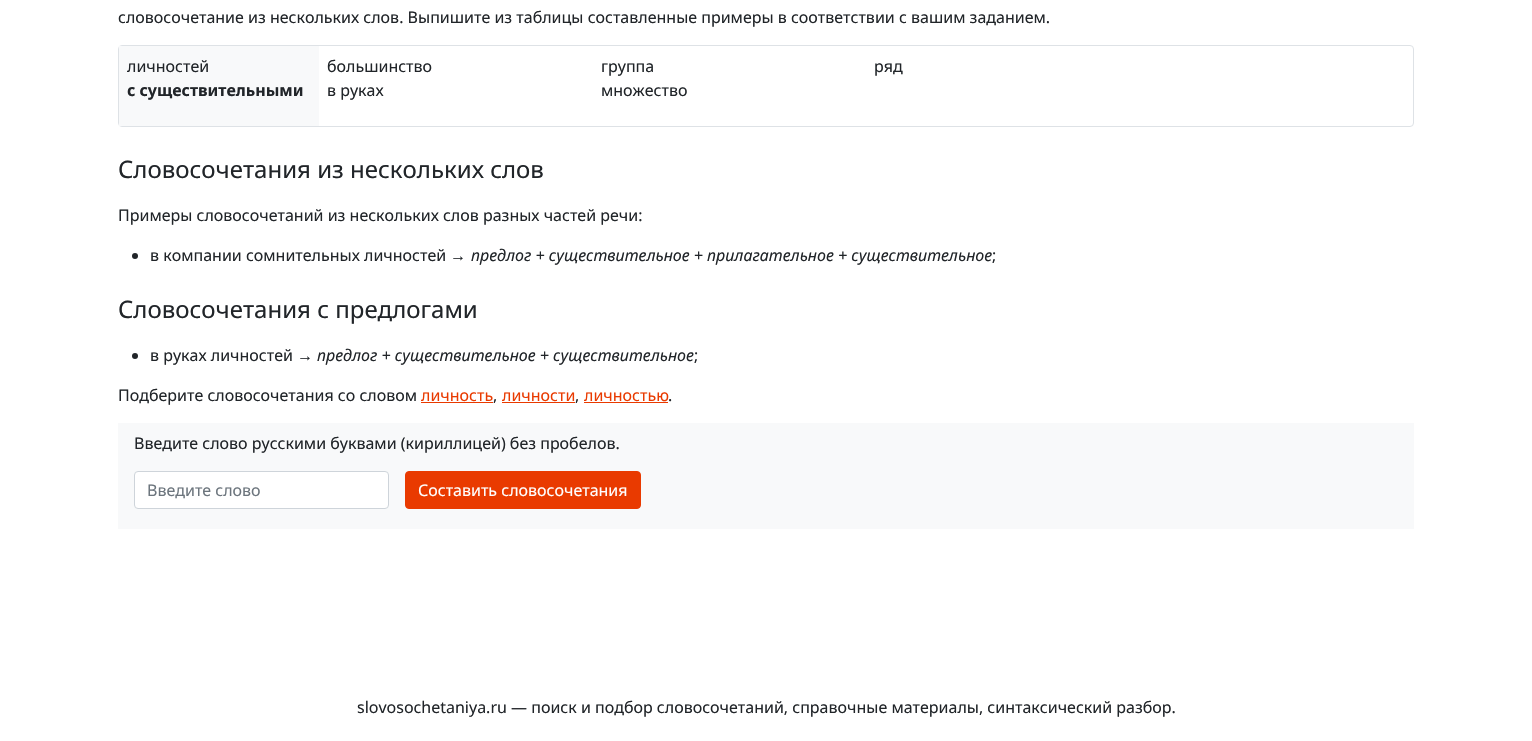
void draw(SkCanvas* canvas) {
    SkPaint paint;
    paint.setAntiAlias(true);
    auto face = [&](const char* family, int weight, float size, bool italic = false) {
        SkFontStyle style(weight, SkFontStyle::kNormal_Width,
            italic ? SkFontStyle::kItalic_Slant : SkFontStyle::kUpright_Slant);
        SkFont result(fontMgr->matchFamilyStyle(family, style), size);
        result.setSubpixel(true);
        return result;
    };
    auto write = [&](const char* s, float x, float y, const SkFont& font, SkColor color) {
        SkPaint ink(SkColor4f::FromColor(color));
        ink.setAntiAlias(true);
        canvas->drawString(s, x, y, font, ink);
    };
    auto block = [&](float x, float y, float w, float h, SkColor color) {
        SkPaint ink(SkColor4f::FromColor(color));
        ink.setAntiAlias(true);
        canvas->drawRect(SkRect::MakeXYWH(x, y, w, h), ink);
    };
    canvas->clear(SK_ColorWHITE);
    auto kFont1 = face("Noto Sans", 400, 16);
    write("словосочетание из нескольких слов. Выпишите из таблицы составленные примеры в соответствии с вашим заданием.", 118, 23, kFont1, SkColorSetRGB(33, 37, 41));
    paint.setStyle(SkPaint::kStroke_Style);
    paint.setStrokeWidth(1);
    paint.setColor(SkColorSetRGB(222, 226, 230));
    canvas->drawRoundRect(SkRect::MakeXYWH(118.5f, 45.5f, 1295, 81), 3.5f, 3.5f, paint);
    block(119, 46, 200, 80, SkColorSetRGB(248, 249, 250));
    write("личностей", 127, 72, kFont1, SkColorSetRGB(33, 37, 41));
    auto kFont2 = face("Noto Sans", 700, 16);
    write("c существительными", 127, 96, kFont2, SkColorSetRGB(33, 37, 41));
    write("большинство", 327, 72, kFont1, SkColorSetRGB(33, 37, 41));
    write("группа", 601, 72, kFont1, SkColorSetRGB(33, 37, 41));
    write("ряд", 874, 72, kFont1, SkColorSetRGB(33, 37, 41));
    write("в руках", 327, 96, kFont1, SkColorSetRGB(33, 37, 41));
    write("множество", 601, 96, kFont1, SkColorSetRGB(33, 37, 41));
    auto kFont3 = face("Noto Sans", 400, 24);
    write("Словосочетания из нескольких слов", 118, 178, kFont3, SkColorSetRGB(33, 37, 41));
    write("Примеры словосочетаний из нескольких слов разных частей речи:", 118, 221, kFont1, SkColorSetRGB(33, 37, 41));
    paint.setStyle(SkPaint::kFill_Style);
    paint.setColor(SkColorSetRGB(33, 37, 41));
    canvas->drawCircle(135, 256, 3, paint);
    write("в компании сомнительных личностей", 150, 261, kFont1, SkColorSetRGB(33, 37, 41));
    auto kFont4 = face("Liberation Sans", 400, 16, true);
    write("→", 450, 261, kFont4, SkColorSetRGB(33, 37, 41));
    auto kFont5 = face("Noto Sans", 400, 16, true);
    write("предлог + существительное + прилагательное + существительное", 471, 261, kFont5, SkColorSetRGB(33, 37, 41));
    write(";", 992, 261, kFont1, SkColorSetRGB(33, 37, 41));
    write("Словосочетания с предлогами", 118, 318, kFont3, SkColorSetRGB(33, 37, 41));
    canvas->drawCircle(135, 356, 3, paint);
    write("в руках личностей", 150, 361, kFont1, SkColorSetRGB(33, 37, 41));
    write("→", 297, 361, kFont4, SkColorSetRGB(33, 37, 41));
    write("предлог + существительное + существительное", 317, 361, kFont5, SkColorSetRGB(33, 37, 41));
    write(";", 694, 361, kFont1, SkColorSetRGB(33, 37, 41));
    write("Подберите словосочетания со словом", 118, 401, kFont1, SkColorSetRGB(33, 37, 41));
    write("личность", 421, 401, kFont1, SkColorSetRGB(233, 58, 0));
    block(421, 402, 72, 1, SkColorSetRGB(233, 58, 0));
    write(",", 493, 401, kFont1, SkColorSetRGB(33, 37, 41));
    write("личности", 502, 401, kFont1, SkColorSetRGB(233, 58, 0));
    block(502, 402, 73, 1, SkColorSetRGB(233, 58, 0));
    write(",", 575, 401, kFont1, SkColorSetRGB(33, 37, 41));
    write("личностью", 584, 401, kFont1, SkColorSetRGB(233, 58, 0));
    block(584, 402, 84, 1, SkColorSetRGB(233, 58, 0));
    write(".", 668, 401, kFont1, SkColorSetRGB(33, 37, 41));
    block(118, 423, 1296, 106, SkColorSetRGB(248, 249, 250));
    write("Введите слово русскими буквами (кириллицей) без пробелов.", 134, 449, kFont1, SkColorSetRGB(33, 37, 41));
    paint.setColor(SK_ColorWHITE);
    canvas->drawRoundRect(SkRect::MakeXYWH(134.5f, 471.5f, 254, 37), 3.5f, 3.5f, paint);
    paint.setStyle(SkPaint::kStroke_Style);
    paint.setColor(SkColorSetRGB(206, 212, 218));
    canvas->drawRoundRect(SkRect::MakeXYWH(134.5f, 471.5f, 254, 37), 3.5f, 3.5f, paint);
    write("Введите слово", 147, 496, kFont1, SkColorSetRGB(108, 117, 125));
    paint.setStyle(SkPaint::kFill_Style);
    paint.setColor(SkColorSetRGB(233, 58, 0));
    canvas->drawRoundRect(SkRect::MakeXYWH(405.5f, 471.5f, 235, 37), 3.5f, 3.5f, paint);
    paint.setStyle(SkPaint::kStroke_Style);
    canvas->drawRoundRect(SkRect::MakeXYWH(405.5f, 471.5f, 235, 37), 3.5f, 3.5f, paint);
    write("Составить словосочетания", 418, 496, kFont1, SK_ColorWHITE);
    write("slovosochetaniya.ru — поиск и подбор словосочетаний, справочные материалы, синтаксический разбор.", 357, 713, kFont1, SkColorSetRGB(33, 37, 41));
}
